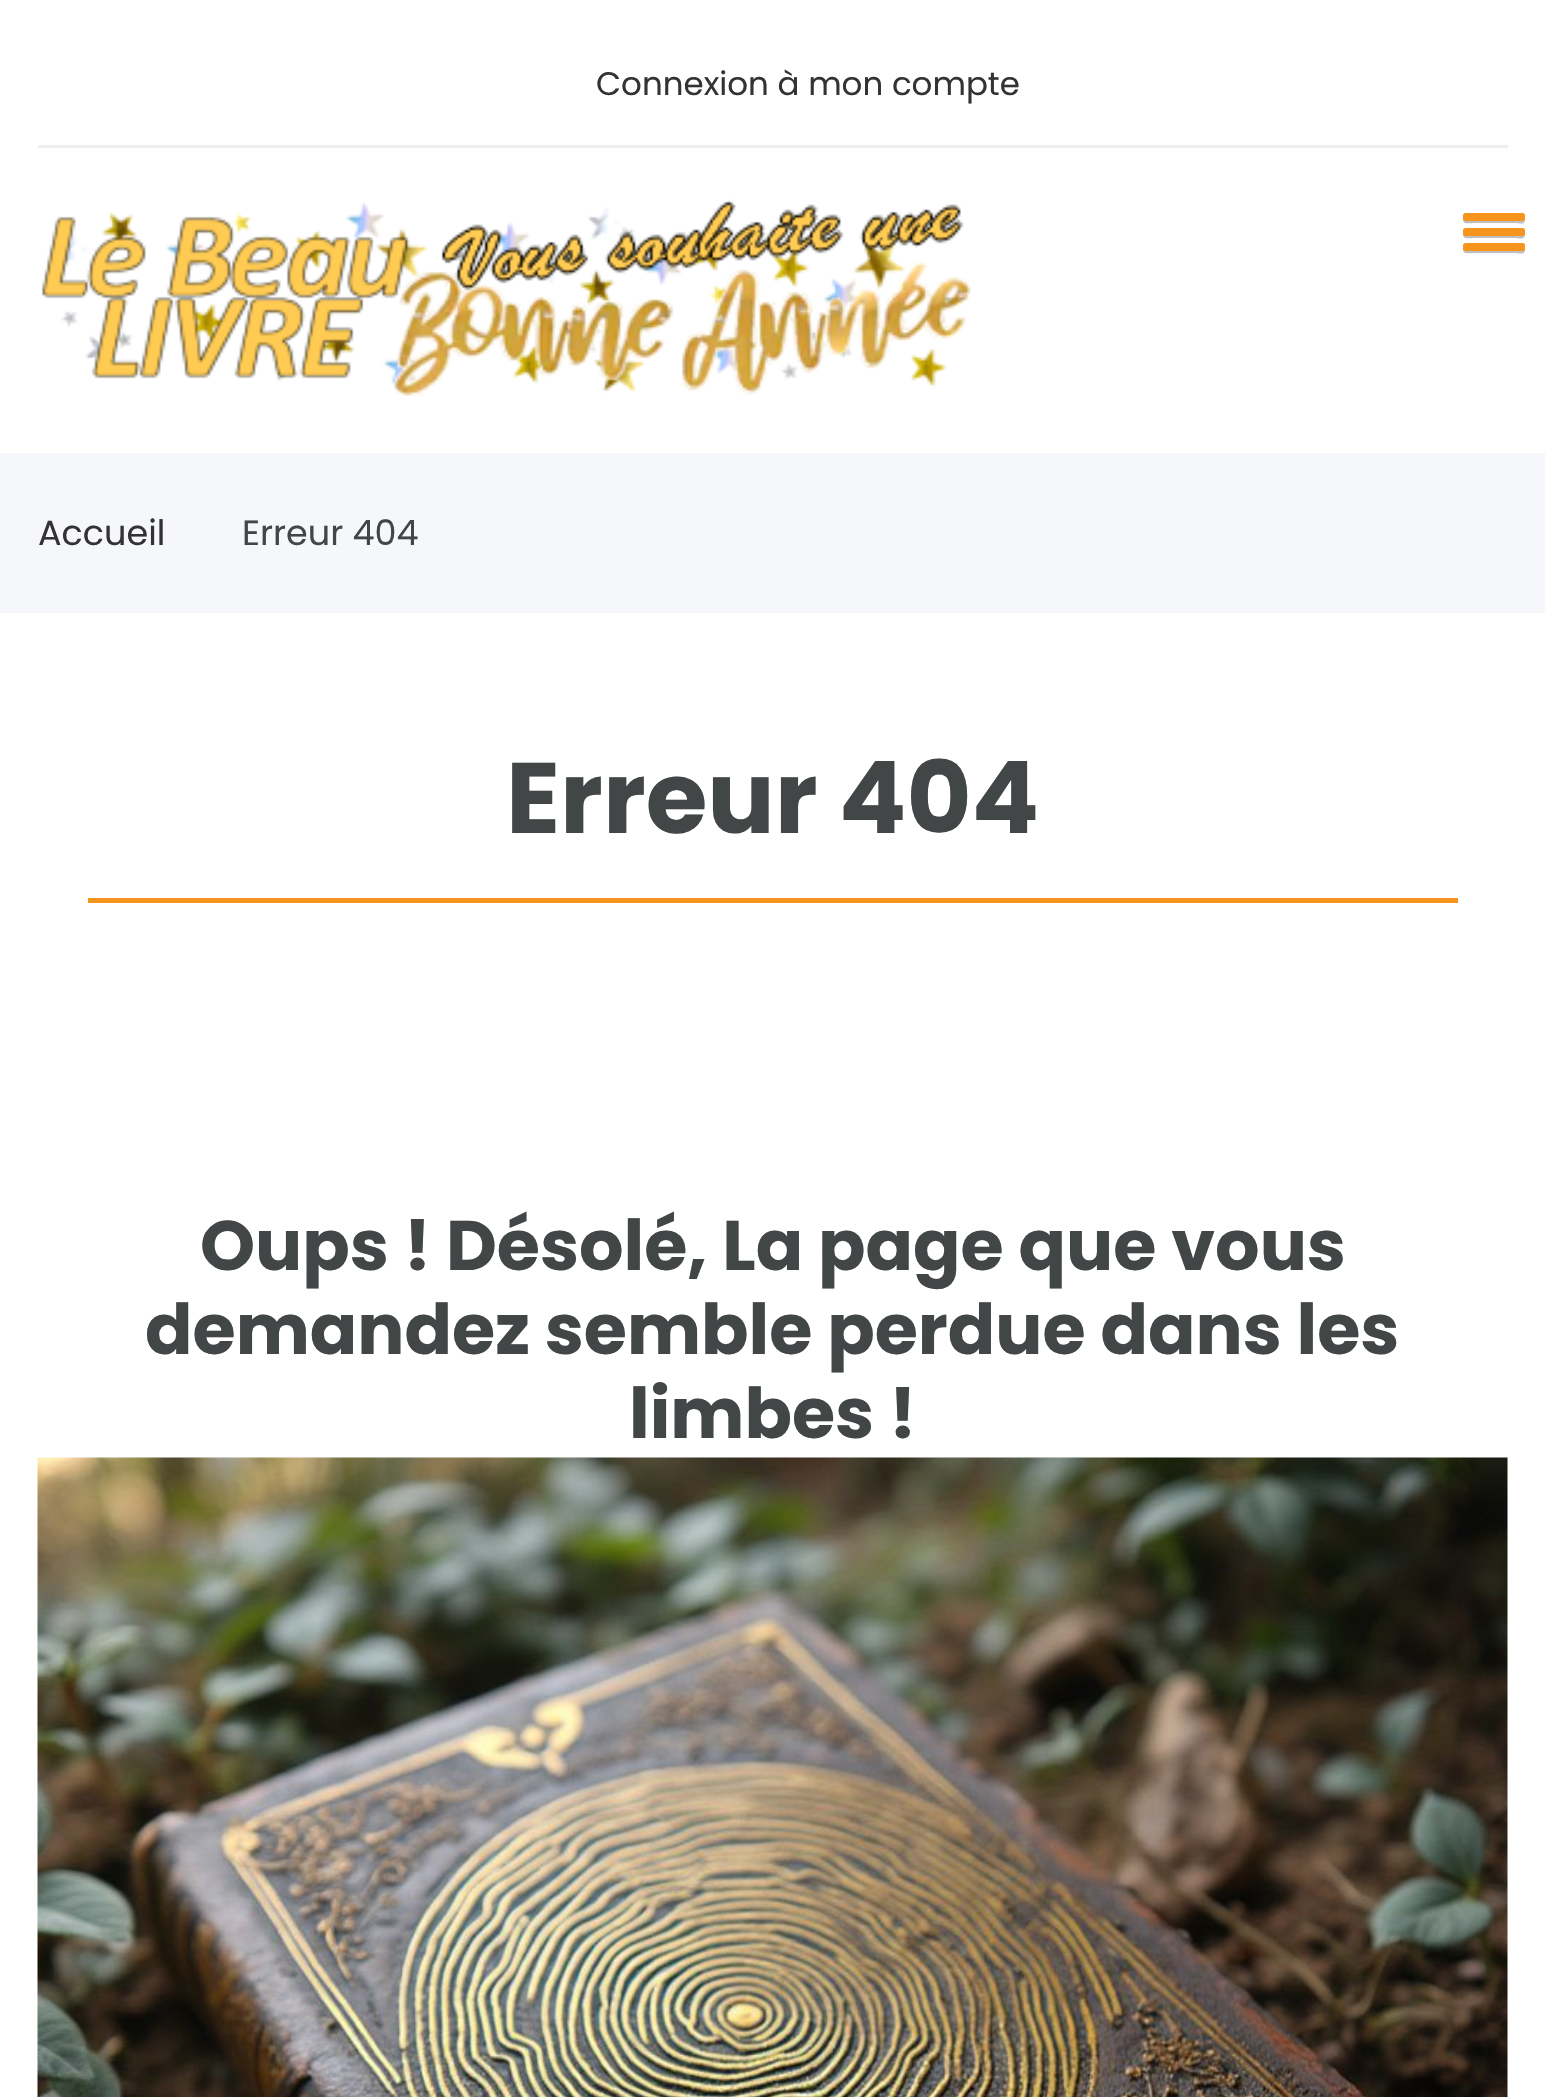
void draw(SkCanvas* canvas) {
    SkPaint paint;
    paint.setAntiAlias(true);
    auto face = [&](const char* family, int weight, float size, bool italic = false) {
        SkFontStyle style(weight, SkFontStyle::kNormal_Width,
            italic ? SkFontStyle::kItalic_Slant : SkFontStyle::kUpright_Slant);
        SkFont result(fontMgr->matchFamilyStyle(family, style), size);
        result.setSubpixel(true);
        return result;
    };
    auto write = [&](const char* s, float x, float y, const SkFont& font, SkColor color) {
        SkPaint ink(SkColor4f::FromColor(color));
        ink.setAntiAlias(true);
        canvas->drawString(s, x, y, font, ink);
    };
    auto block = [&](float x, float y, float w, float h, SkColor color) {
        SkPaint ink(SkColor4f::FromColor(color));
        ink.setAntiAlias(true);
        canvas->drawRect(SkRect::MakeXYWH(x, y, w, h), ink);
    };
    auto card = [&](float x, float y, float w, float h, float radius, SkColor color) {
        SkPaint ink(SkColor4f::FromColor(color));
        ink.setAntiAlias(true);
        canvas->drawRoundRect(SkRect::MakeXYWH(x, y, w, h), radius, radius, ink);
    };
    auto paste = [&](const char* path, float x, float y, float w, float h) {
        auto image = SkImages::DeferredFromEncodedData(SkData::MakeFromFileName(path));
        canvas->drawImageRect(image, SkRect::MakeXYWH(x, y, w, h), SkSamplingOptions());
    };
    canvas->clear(SK_ColorWHITE);
    block(38, 145, 1470, 3, SkColorSetRGB(238, 238, 238));
    auto kFont1 = face("Poppins", 400, 32.5f);
    write("Connexion à mon compte", 596, 95, kFont1, SkColorSetRGB(51, 51, 51));
    paste("pic1.png", 41, 199, 930, 197);
    paint.setColor(SkColorSetRGB(191, 191, 191));
    canvas->drawPath(SkPathBuilder().moveTo(1463, 219).cubicTo(1463, 225, 1469, 223, 1475, 223).lineTo(1513, 223).cubicTo(1522, 223, 1525, 226, 1525, 218).cubicTo(1525, 218, 1524, 219, 1523, 220).lineTo(1465, 220).close().detach(), paint);
    card(1463, 213, 62, 8, 2.5f, SkColorSetRGB(247, 148, 29));
    canvas->drawPath(SkPathBuilder().moveTo(1463, 234).cubicTo(1463, 240, 1469, 238, 1475, 238).lineTo(1513, 238).cubicTo(1522, 238, 1525, 241, 1525, 232).cubicTo(1525, 233, 1524, 234, 1523, 235).lineTo(1465, 235).close().detach(), paint);
    card(1463, 228, 62, 8, 2.5f, SkColorSetRGB(247, 148, 29));
    canvas->drawPath(SkPathBuilder().moveTo(1463, 249).cubicTo(1463, 255, 1469, 253, 1475, 253).lineTo(1513, 253).cubicTo(1522, 253, 1525, 256, 1525, 248).cubicTo(1525, 248, 1524, 249, 1523, 250).lineTo(1465, 250).close().detach(), paint);
    card(1463, 243, 62, 8, 2.5f, SkColorSetRGB(247, 148, 29));
    block(0, 453, 1545, 160, SkColorSetRGB(246, 247, 251));
    auto kFont2 = face("Poppins", 400, 35);
    write("Accueil", 38, 545, kFont2, SkColorSetRGB(51, 51, 51));
    write("Erreur 404", 242, 545, kFont2, SkColorSetRGB(66, 70, 70));
    auto kFont3 = face("Poppins", 700, 100);
    write("Erreur 404", 506, 833, kFont3, SkColorSetRGB(66, 70, 70));
    block(88, 898, 1370, 5, SkColorSetRGB(247, 148, 29));
    auto kFont4 = face("Poppins", 700, 70);
    write("Oups ! Désolé, La page que vous", 200, 1270, kFont4, SkColorSetRGB(66, 70, 70));
    write("demandez semble perdue dans les", 145, 1354, kFont4, SkColorSetRGB(66, 70, 70));
    write("limbes !", 629, 1438, kFont4, SkColorSetRGB(66, 70, 70));
    paste("pic2.png", 37, 1457, 1471, 640);
}
